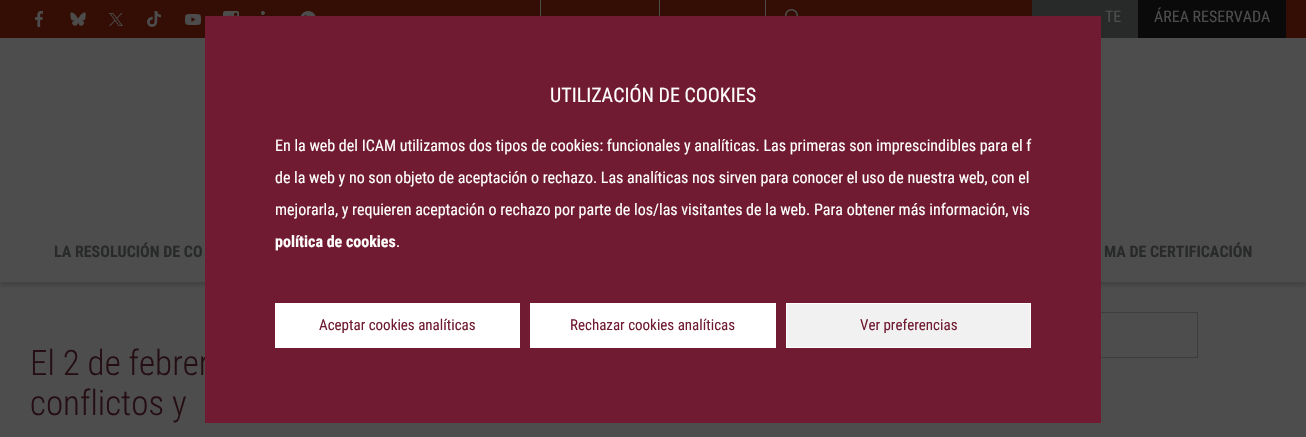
void draw(SkCanvas* canvas) {
    SkPaint paint;
    paint.setAntiAlias(true);
    auto face = [&](const char* family, int weight, float size, bool italic = false) {
        SkFontStyle style(weight, SkFontStyle::kNormal_Width,
            italic ? SkFontStyle::kItalic_Slant : SkFontStyle::kUpright_Slant);
        SkFont result(fontMgr->matchFamilyStyle(family, style), size);
        result.setSubpixel(true);
        return result;
    };
    auto write = [&](const char* s, float x, float y, const SkFont& font, SkColor color) {
        SkPaint ink(SkColor4f::FromColor(color));
        ink.setAntiAlias(true);
        canvas->drawString(s, x, y, font, ink);
    };
    auto block = [&](float x, float y, float w, float h, SkColor color) {
        SkPaint ink(SkColor4f::FromColor(color));
        ink.setAntiAlias(true);
        canvas->drawRect(SkRect::MakeXYWH(x, y, w, h), ink);
    };
    auto paste = [&](const char* path, float x, float y, float w, float h) {
        auto image = SkImages::DeferredFromEncodedData(SkData::MakeFromFileName(path));
        canvas->drawImageRect(image, SkRect::MakeXYWH(x, y, w, h), SkSamplingOptions());
    };
    canvas->clear(SkColorSetRGB(77, 77, 77));
    block(0, 0, 1306, 38, SkColorSetRGB(52, 13, 4));
    paste("pic1.png", 35, 11, 8, 16);
    paste("pic2.png", 70, 12, 16, 14);
    paste("pic3.png", 108, 13, 16, 13);
    paste("pic4.png", 147, 11, 14, 16);
    paste("pic5.png", 185, 14, 16, 11);
    paste("pic6.png", 223, 11, 16, 5);
    paste("pic7.png", 261, 11, 13, 5);
    paste("pic8.png", 300, 11, 16, 5);
    block(540, 0, 1, 16, SkColorSetRGB(77, 77, 77));
    block(659, 0, 1, 16, SkColorSetRGB(77, 77, 77));
    block(765, 0, 1, 16, SkColorSetRGB(77, 77, 77));
    paste("pic9.png", 785, 9, 13, 7);
    block(1032, 0, 106, 38, SkColorSetRGB(40, 41, 41));
    auto kFont1 = face("Roboto Condensed", 400, 16);
    write("TE", 1105, 22, kFont1, SkColorSetRGB(77, 77, 77));
    block(1138, 0, 148, 38, SkColorSetRGB(10, 10, 10));
    write("ÁREA RESERVADA", 1154, 22, kFont1, SkColorSetRGB(77, 77, 77));
    canvas->save();
    canvas->clipRect(SkRect::MakeXYWH(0, 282, 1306, 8));
    paint.setColor(SkColorSetRGB(66, 66, 66));
    paint.setMaskFilter(SkMaskFilter::MakeBlur(kNormal_SkBlurStyle, 2));
    canvas->drawRect(SkRect::MakeXYWH(0, 226, 1306, 60), paint);
    paint.setMaskFilter(nullptr);
    canvas->restore();
    paint.setStyle(SkPaint::kStroke_Style);
    paint.setStrokeWidth(1);
    paint.setColor(SkColorSetRGB(61, 61, 61));
    canvas->drawRect(SkRect::MakeXYWH(965.5f, 312.5f, 232, 45), paint);
    auto kFont2 = face("Roboto Condensed", 300, 35);
    write("El 2 de febrer", 30, 375, kFont2, SkColorSetRGB(37, 14, 19));
    block(205, 16, 896, 407, SkColorSetRGB(112, 27, 49));
    auto kFont3 = face("Roboto Condensed", 400, 20);
    write("UTILIZACIÓN DE COOKIES", 550, 102, kFont3, SK_ColorWHITE);
    write("En la web del ICAM utilizamos dos tipos de cookies: funcionales y analíticas. Las primeras son imprescindibles para el f", 275, 151, kFont1, SK_ColorWHITE);
    write("de la web y no son objeto de aceptación o rechazo. Las analíticas nos sirven para conocer el uso de nuestra web, con el", 275, 183, kFont1, SK_ColorWHITE);
    write("mejorarla, y requieren aceptación o rechazo por parte de los/las visitantes de la web. Para obtener más información, vis", 275, 215, kFont1, SK_ColorWHITE);
    auto kFont4 = face("Roboto Condensed", 700, 16);
    write("política de cookies", 275, 247, kFont4, SK_ColorWHITE);
    write(".", 396, 247, kFont1, SK_ColorWHITE);
    block(275, 303, 245, 45, SK_ColorWHITE);
    auto kFont5 = face("Roboto Condensed", 400, 15);
    write("Aceptar cookies analíticas", 319, 330, kFont5, SkColorSetRGB(112, 27, 49));
    block(530, 303, 246, 45, SK_ColorWHITE);
    write("Rechazar cookies analíticas", 570, 330, kFont5, SkColorSetRGB(112, 27, 49));
    paint.setStyle(SkPaint::kFill_Style);
    paint.setColor(SkColorSetRGB(241, 241, 241));
    canvas->drawRect(SkRect::MakeXYWH(786.5f, 303.5f, 244, 44), paint);
    paint.setStyle(SkPaint::kStroke_Style);
    paint.setColor(SK_ColorWHITE);
    canvas->drawRect(SkRect::MakeXYWH(786.5f, 303.5f, 244, 44), paint);
    write("Ver preferencias", 860, 330, kFont5, SkColorSetRGB(112, 27, 49));
    write("LA RESOLUCIÓN DE CO", 54, 257, kFont4, SkColorSetRGB(40, 41, 41));
    write("MA DE CERTIFICACIÓN", 1104, 257, kFont4, SkColorSetRGB(40, 41, 41));
    write("conflictos y", 30, 415, kFont2, SkColorSetRGB(37, 14, 19));
}
